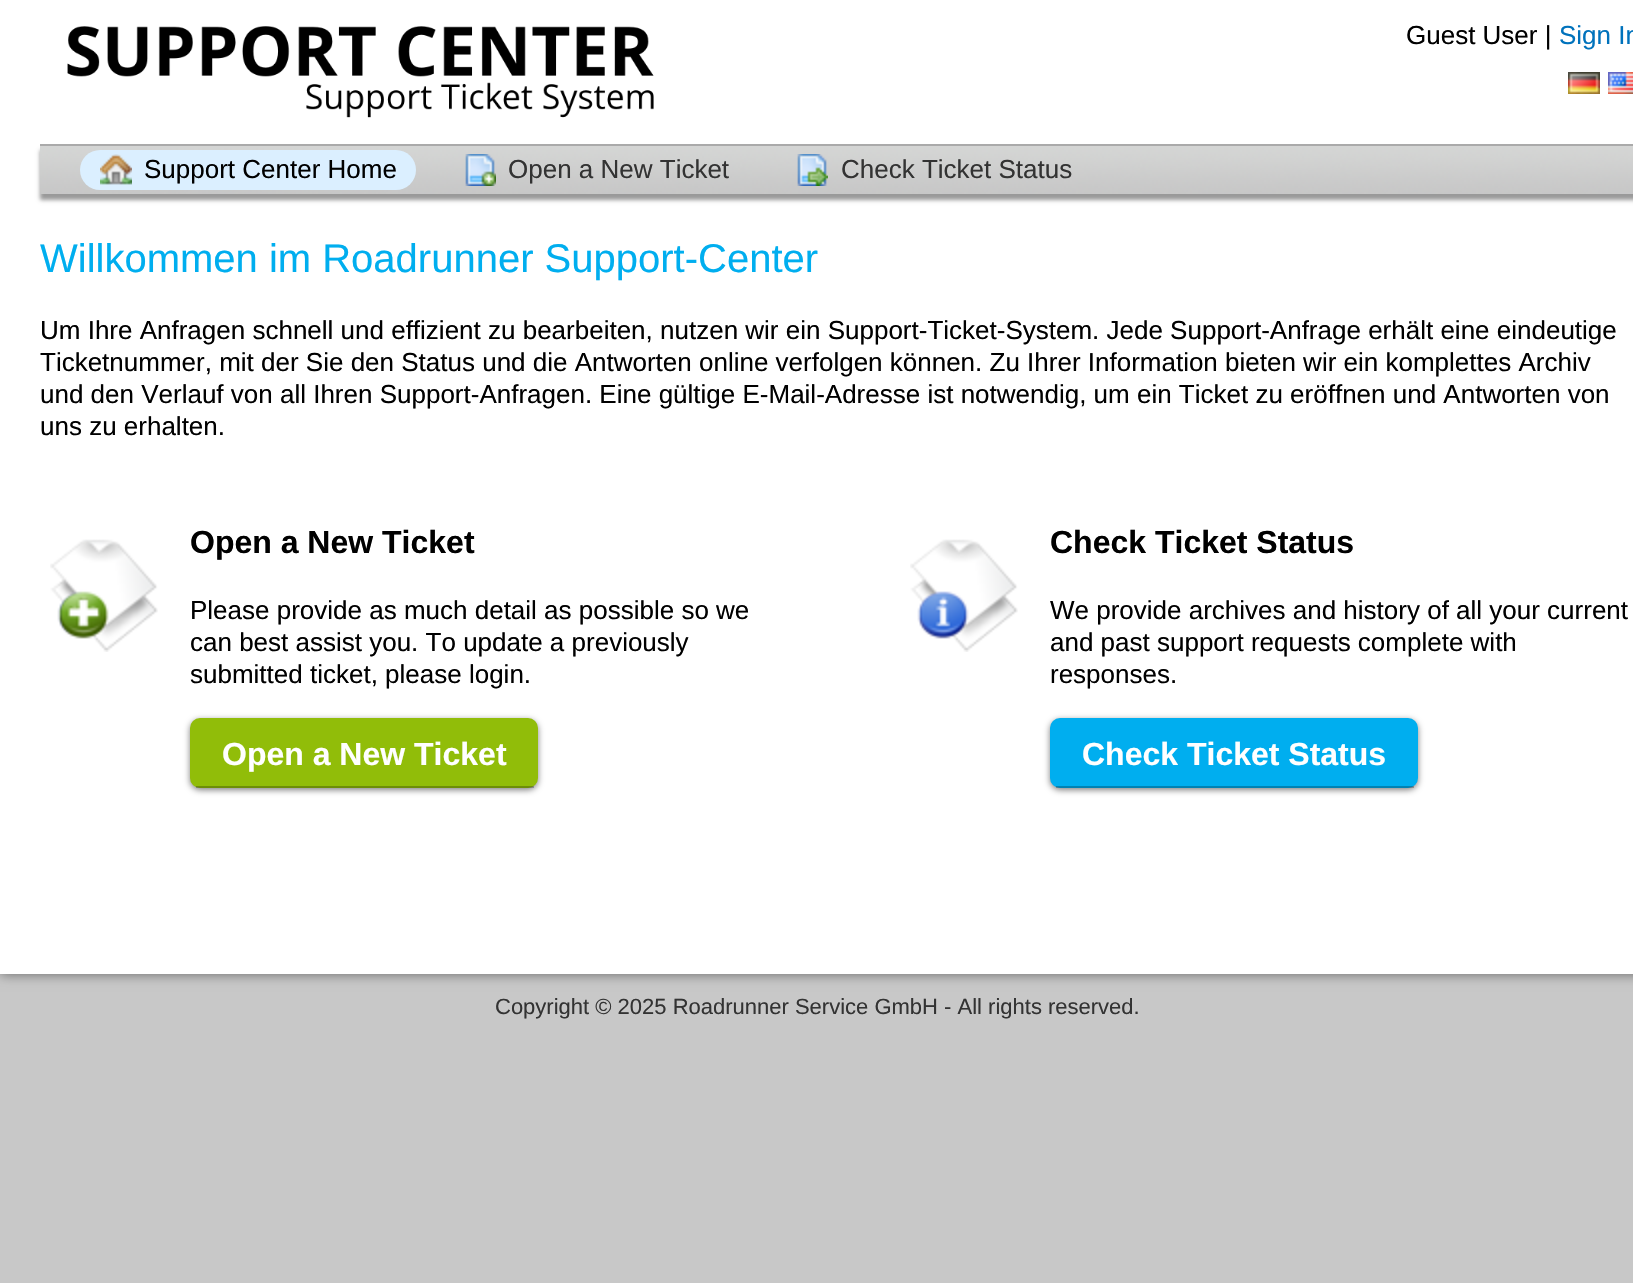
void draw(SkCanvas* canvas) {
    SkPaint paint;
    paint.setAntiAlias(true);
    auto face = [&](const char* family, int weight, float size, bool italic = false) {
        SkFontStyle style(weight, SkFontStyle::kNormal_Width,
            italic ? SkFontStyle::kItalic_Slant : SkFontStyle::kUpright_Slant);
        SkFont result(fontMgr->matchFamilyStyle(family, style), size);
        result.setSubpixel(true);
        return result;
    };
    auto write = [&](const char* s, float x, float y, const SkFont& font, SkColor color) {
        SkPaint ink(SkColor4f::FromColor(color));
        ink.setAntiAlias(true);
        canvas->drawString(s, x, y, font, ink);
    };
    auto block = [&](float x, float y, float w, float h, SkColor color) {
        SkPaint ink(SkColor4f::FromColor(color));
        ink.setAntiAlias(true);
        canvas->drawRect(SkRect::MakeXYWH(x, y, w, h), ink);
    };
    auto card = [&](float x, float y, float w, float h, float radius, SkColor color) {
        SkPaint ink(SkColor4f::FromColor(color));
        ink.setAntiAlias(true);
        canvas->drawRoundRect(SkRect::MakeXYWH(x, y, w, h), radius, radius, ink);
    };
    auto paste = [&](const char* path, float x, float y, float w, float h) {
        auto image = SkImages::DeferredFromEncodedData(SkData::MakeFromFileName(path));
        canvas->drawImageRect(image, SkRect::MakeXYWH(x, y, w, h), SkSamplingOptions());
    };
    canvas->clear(SkColorSetRGB(200, 200, 200));
    paint.setColor(SkColorSetARGB(128, 0, 0, 0));
    paint.setMaskFilter(SkMaskFilter::MakeBlur(kNormal_SkBlurStyle, 6));
    canvas->drawRect(SkRect::MakeXYWH(0, 0, 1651, 974), paint);
    paint.setMaskFilter(nullptr);
    block(0, 0, 1633, 974, SK_ColorWHITE);
    paste("pic1.png", 67, 26, 587, 92);
    auto kFont1 = face("Liberation Sans", 400, 26);
    write("Guest User |", 1406, 44, kFont1, SK_ColorBLACK);
    write("Sign In", 1559, 44, kFont1, SkColorSetRGB(0, 114, 188));
    paste("pic2.png", 1568, 72, 32, 22);
    paste("pic3.png", 1608, 72, 25, 22);
    paint.setColor(SkColorSetARGB(102, 0, 0, 0));
    paint.setMaskFilter(SkMaskFilter::MakeBlur(kNormal_SkBlurStyle, 2));
    canvas->drawRect(SkRect::MakeXYWH(40, 150, 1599, 50), paint);
    paint.setMaskFilter(nullptr);
    paste("pic4.png", 40, 146, 1593, 48);
    block(40, 144, 1593, 2, SkColorSetRGB(170, 170, 170));
    card(80, 150, 336, 40, 20, SkColorSetRGB(219, 239, 255));
    paste("pic5.png", 100, 154, 32, 31);
    write("Support Center Home", 144, 178, kFont1, SK_ColorBLACK);
    paste("pic6.png", 465, 154, 31, 32);
    write("Open a New Ticket", 508, 178, kFont1, SkColorSetRGB(51, 51, 51));
    paste("pic7.png", 797, 154, 31, 32);
    write("Check Ticket Status", 841, 178, kFont1, SkColorSetRGB(51, 51, 51));
    auto kFont2 = face("Liberation Sans", 400, 40);
    write("Willkommen im Roadrunner Support-Center", 40, 272, kFont2, SkColorSetRGB(0, 174, 239));
    write("Um Ihre Anfragen schnell und effizient zu bearbeiten, nutzen wir ein Support-Ticket-System. Jede Support-Anfrage erhält eine eindeutige", 40, 339, kFont1, SK_ColorBLACK);
    write("Ticketnummer, mit der Sie den Status und die Antworten online verfolgen können. Zu Ihrer Information bieten wir ein komplettes Archiv", 40, 371, kFont1, SK_ColorBLACK);
    write("und den Verlauf von all Ihren Support-Anfragen. Eine gültige E-Mail-Adresse ist notwendig, um ein Ticket zu eröffnen und Antworten von", 40, 403, kFont1, SK_ColorBLACK);
    write("uns zu erhalten.", 40, 435, kFont1, SK_ColorBLACK);
    paste("pic8.png", 50, 539, 108, 113);
    auto kFont3 = face("Liberation Sans", 700, 32);
    write("Open a New Ticket", 190, 553, kFont3, SK_ColorBLACK);
    write("Please provide as much detail as possible so we", 190, 619, kFont1, SK_ColorBLACK);
    write("can best assist you. To update a previously", 190, 651, kFont1, SK_ColorBLACK);
    write("submitted ticket, please login.", 190, 683, kFont1, SK_ColorBLACK);
    paste("pic9.png", 910, 539, 108, 113);
    write("Check Ticket Status", 1050, 553, kFont3, SK_ColorBLACK);
    write("We provide archives and history of all your current", 1050, 619, kFont1, SK_ColorBLACK);
    write("and past support requests complete with", 1050, 651, kFont1, SK_ColorBLACK);
    write("responses.", 1050, 683, kFont1, SK_ColorBLACK);
    paint.setColor(SkColorSetARGB(128, 0, 0, 0));
    paint.setMaskFilter(SkMaskFilter::MakeBlur(kNormal_SkBlurStyle, 3));
    canvas->drawRoundRect(SkRect::MakeXYWH(190, 720, 348, 70), 10, 10, paint);
    paint.setMaskFilter(nullptr);
    card(190, 718, 348, 70, 10, SkColorSetRGB(145, 189, 9));
    block(196, 786, 338, 2, SkColorSetARGB(64, 0, 0, 0));
    write("Open a New Ticket", 222, 765, kFont3, SK_ColorWHITE);
    paint.setMaskFilter(SkMaskFilter::MakeBlur(kNormal_SkBlurStyle, 3));
    canvas->drawRoundRect(SkRect::MakeXYWH(1050, 720, 368, 70), 10, 10, paint);
    paint.setMaskFilter(nullptr);
    card(1050, 718, 368, 70, 10, SkColorSetRGB(0, 174, 239));
    block(1056, 786, 358, 2, SkColorSetARGB(64, 0, 0, 0));
    write("Check Ticket Status", 1082, 765, kFont3, SK_ColorWHITE);
    auto kFont4 = face("Liberation Sans", 400, 22);
    write("Copyright © 2025 Roadrunner Service GmbH - All rights reserved.", 495, 1014, kFont4, SkColorSetRGB(51, 51, 51));
}
